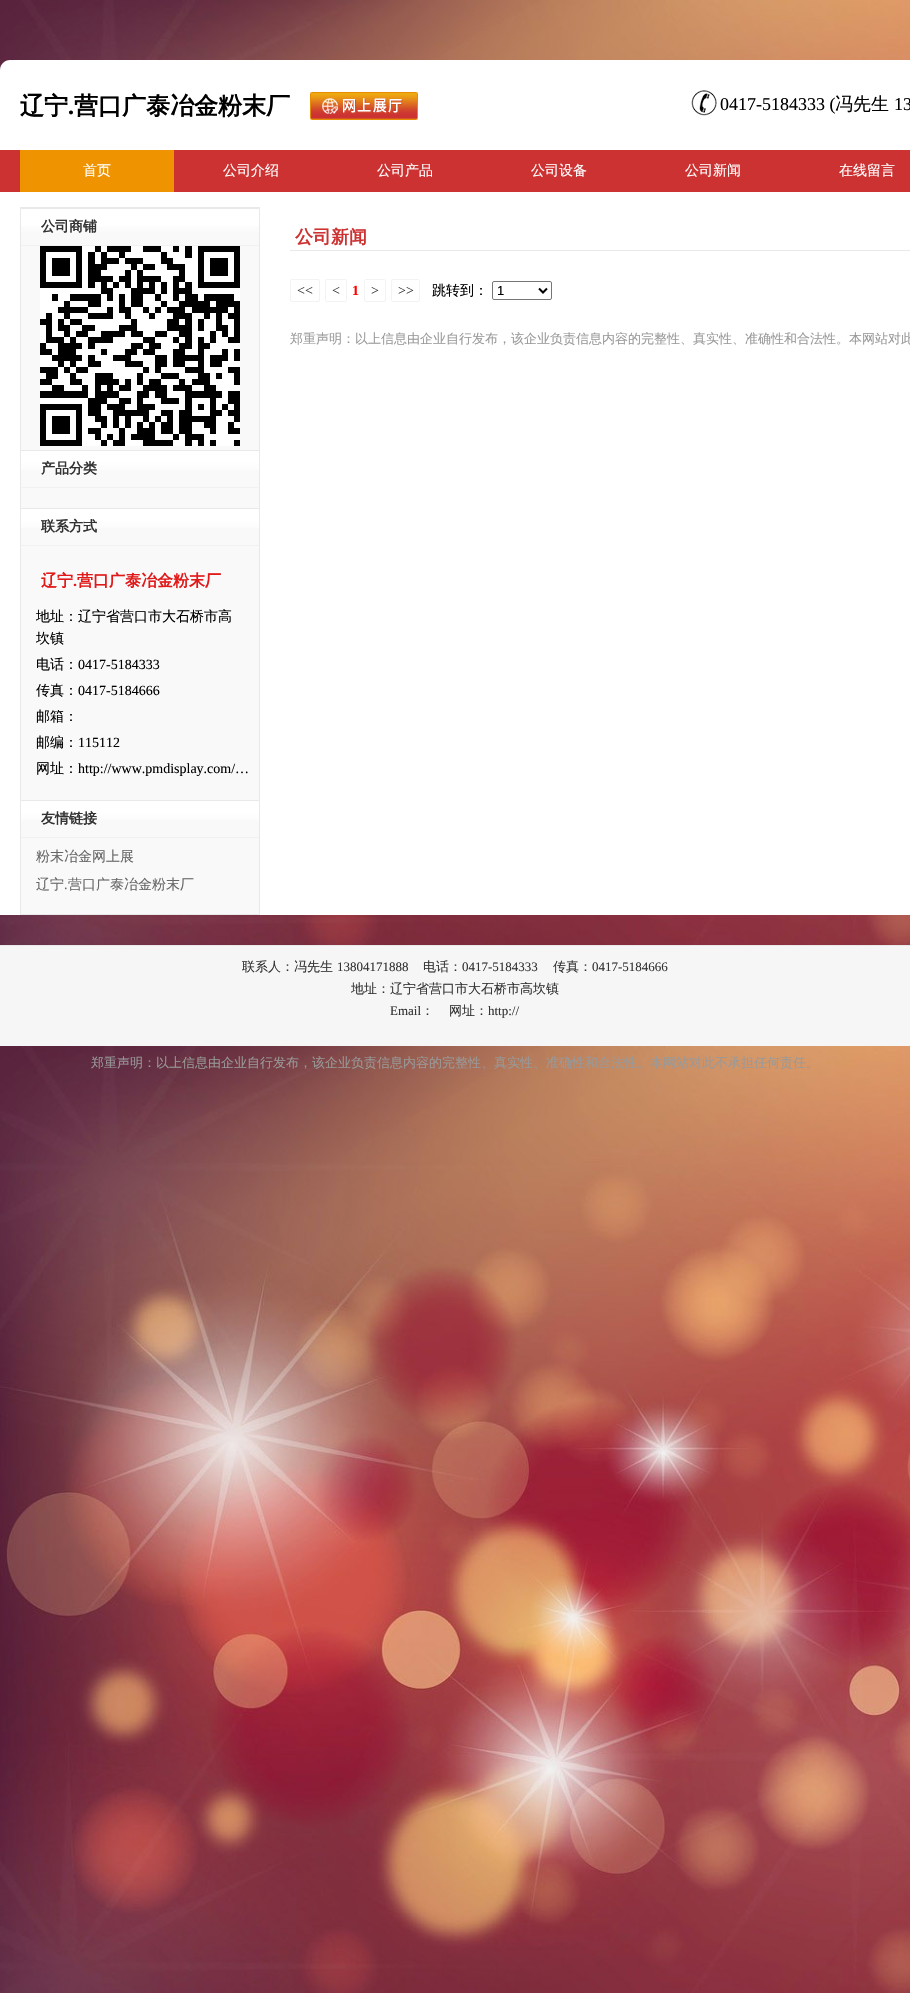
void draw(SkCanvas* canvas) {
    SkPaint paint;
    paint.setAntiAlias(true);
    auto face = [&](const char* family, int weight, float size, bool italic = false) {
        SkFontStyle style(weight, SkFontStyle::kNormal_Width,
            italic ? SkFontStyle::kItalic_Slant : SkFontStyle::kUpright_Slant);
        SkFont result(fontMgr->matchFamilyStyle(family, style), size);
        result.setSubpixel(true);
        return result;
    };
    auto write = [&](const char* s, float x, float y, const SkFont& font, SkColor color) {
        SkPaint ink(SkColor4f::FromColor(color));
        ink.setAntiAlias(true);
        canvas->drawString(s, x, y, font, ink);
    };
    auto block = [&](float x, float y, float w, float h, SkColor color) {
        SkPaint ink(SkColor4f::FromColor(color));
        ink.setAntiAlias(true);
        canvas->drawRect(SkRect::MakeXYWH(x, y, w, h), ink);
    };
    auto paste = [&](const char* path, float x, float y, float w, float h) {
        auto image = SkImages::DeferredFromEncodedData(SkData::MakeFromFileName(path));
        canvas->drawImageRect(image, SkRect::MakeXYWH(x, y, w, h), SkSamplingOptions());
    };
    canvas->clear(SK_ColorWHITE);
    paste("pic1.png", 0, 0, 910, 1993);
    paint.setColor(SK_ColorWHITE);
    canvas->drawPath(SkPathBuilder().moveTo(10, 60).lineTo(910, 60).cubicTo(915.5f, 60, 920, 64.5f, 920, 70).lineTo(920, 150).lineTo(0, 150).lineTo(0, 70).cubicTo(0, 64.5f, 4.5f, 60, 10, 60).close().detach(), paint);
    auto kFont1 = face("WenQuanYi Zen Hei", 700, 24);
    write("辽宁", 20, 114, kFont1, SK_ColorBLACK);
    auto kFont2 = face("Liberation Serif", 700, 24);
    write(".", 68, 114, kFont2, SK_ColorBLACK);
    write("营口广泰冶金粉末厂", 74, 114, kFont1, SK_ColorBLACK);
    paste("pic2.png", 310, 92, 108, 28);
    paste("pic3.png", 691, 90, 26, 26);
    auto kFont3 = face("Liberation Serif", 400, 18);
    write("0417-5184333 (", 720, 110, kFont3, SK_ColorBLACK);
    auto kFont4 = face("WenQuanYi Zen Hei", 500, 18);
    write("冯先生", 835, 110, kFont4, SK_ColorBLACK);
    write("13", 894, 110, kFont3, SK_ColorBLACK);
    block(0, 150, 910, 42, SkColorSetRGB(204, 50, 50));
    block(20, 150, 154, 42, SkColorSetRGB(240, 147, 0));
    auto kFont5 = face("WenQuanYi Zen Hei", 500, 14);
    write("首页", 83, 175, kFont5, SK_ColorWHITE);
    write("公司介绍", 223, 175, kFont5, SK_ColorWHITE);
    write("公司产品", 377, 175, kFont5, SK_ColorWHITE);
    write("公司设备", 531, 175, kFont5, SK_ColorWHITE);
    write("公司新闻", 685, 175, kFont5, SK_ColorWHITE);
    write("在线留言", 839, 175, kFont5, SK_ColorWHITE);
    block(0, 192, 910, 723, SK_ColorWHITE);
    block(21, 246, 238, 668, SkColorSetRGB(249, 249, 249));
    paint.setStyle(SkPaint::kStroke_Style);
    paint.setStrokeWidth(1);
    paint.setColor(SkColorSetRGB(233, 233, 233));
    canvas->drawRect(SkRect::MakeXYWH(20.5f, 207.5f, 239, 707), paint);
    paint.setStyle(SkPaint::kFill_Style);
    {
        const SkColor colors[] = {SK_ColorWHITE, SkColorSetRGB(249, 249, 249)};
        const float stops[] = {0.3f, 0.7f};
        const SkPoint ends[] = {{140, 209}, {140, 245}};
        paint.setShader(SkGradientShader::MakeLinear(ends, colors, stops, 2, SkTileMode::kClamp));
        paint.setAlpha(255);
    }
    canvas->drawRect(SkRect::MakeXYWH(21, 226, 238, 19), paint);
    block(21, 208, 238, 1, SkColorSetRGB(233, 233, 233));
    block(21, 245, 238, 1, SkColorSetRGB(241, 241, 241));
    auto kFont6 = face("WenQuanYi Zen Hei", 700, 14);
    write("公司商铺", 41, 231, kFont6, SkColorSetRGB(51, 51, 51));
    paste("pic4.png", 40, 246, 200, 200);
    {
        const SkColor colors[] = {SK_ColorWHITE, SkColorSetRGB(249, 249, 249)};
        const float stops[] = {0.3f, 0.7f};
        const SkPoint ends[] = {{140, 451}, {140, 487}};
        paint.setShader(SkGradientShader::MakeLinear(ends, colors, stops, 2, SkTileMode::kClamp));
        paint.setAlpha(255);
    }
    canvas->drawRect(SkRect::MakeXYWH(21, 451, 238, 19), paint);
    block(21, 450, 238, 1, SkColorSetRGB(233, 233, 233));
    block(21, 487, 238, 1, SkColorSetRGB(241, 241, 241));
    write("产品分类", 41, 473, kFont6, SkColorSetRGB(51, 51, 51));
    {
        const SkColor colors[] = {SK_ColorWHITE, SkColorSetRGB(249, 249, 249)};
        const float stops[] = {0.3f, 0.7f};
        const SkPoint ends[] = {{140, 509}, {140, 545}};
        paint.setShader(SkGradientShader::MakeLinear(ends, colors, stops, 2, SkTileMode::kClamp));
        paint.setAlpha(255);
    }
    canvas->drawRect(SkRect::MakeXYWH(21, 509, 238, 19), paint);
    block(21, 508, 238, 1, SkColorSetRGB(233, 233, 233));
    block(21, 545, 238, 1, SkColorSetRGB(241, 241, 241));
    write("联系方式", 41, 531, kFont6, SkColorSetRGB(51, 51, 51));
    auto kFont7 = face("WenQuanYi Zen Hei", 700, 16);
    write("辽宁", 41, 586, kFont7, SkColorSetRGB(225, 25, 25));
    auto kFont8 = face("Liberation Serif", 700, 16);
    write(".", 73, 586, kFont8, SkColorSetRGB(225, 25, 25));
    write("营口广泰冶金粉末厂", 77, 586, kFont7, SkColorSetRGB(225, 25, 25));
    write("地址：辽宁省营口市大石桥市高", 36, 621, kFont5, SK_ColorBLACK);
    write("坎镇", 36, 643, kFont5, SK_ColorBLACK);
    write("电话：", 36, 669, kFont5, SK_ColorBLACK);
    auto kFont9 = face("Liberation Serif", 400, 14);
    write("0417-5184333", 78, 669, kFont9, SK_ColorBLACK);
    write("传真：", 36, 695, kFont5, SK_ColorBLACK);
    write("0417-5184666", 78, 695, kFont9, SK_ColorBLACK);
    write("邮箱：", 36, 721, kFont5, SK_ColorBLACK);
    write("邮编：", 36, 747, kFont5, SK_ColorBLACK);
    write("115112", 78, 747, kFont9, SK_ColorBLACK);
    write("网址：", 36, 773, kFont5, SK_ColorBLACK);
    write("http://www.pmdisplay.com/…", 78, 773, kFont9, SK_ColorBLACK);
    {
        const SkColor colors[] = {SK_ColorWHITE, SkColorSetRGB(249, 249, 249)};
        const float stops[] = {0.3f, 0.7f};
        const SkPoint ends[] = {{140, 801}, {140, 837}};
        paint.setShader(SkGradientShader::MakeLinear(ends, colors, stops, 2, SkTileMode::kClamp));
        paint.setAlpha(255);
    }
    canvas->drawRect(SkRect::MakeXYWH(21, 801, 238, 19), paint);
    block(21, 800, 238, 1, SkColorSetRGB(233, 233, 233));
    block(21, 837, 238, 1, SkColorSetRGB(241, 241, 241));
    write("友情链接", 41, 823, kFont6, SkColorSetRGB(51, 51, 51));
    write("粉末冶金网上展", 36, 861, kFont5, SkColorSetRGB(102, 102, 102));
    write("辽宁", 36, 889, kFont5, SkColorSetRGB(102, 102, 102));
    write(".", 64, 889, kFont9, SkColorSetRGB(102, 102, 102));
    write("营口广泰冶金粉末厂", 68, 889, kFont5, SkColorSetRGB(102, 102, 102));
    block(290, 250, 620, 1, SkColorSetRGB(233, 233, 233));
    auto kFont10 = face("WenQuanYi Zen Hei", 700, 18);
    write("公司新闻", 295, 243, kFont10, SkColorSetRGB(204, 50, 50));
    paint.setStyle(SkPaint::kStroke_Style);
    paint.setShader(nullptr);
    paint.setColor(SkColorSetRGB(243, 243, 243));
    canvas->drawRoundRect(SkRect::MakeXYWH(290.5f, 279.5f, 29, 22), 1.5f, 1.5f, paint);
    write("<<", 297, 295, kFont9, SkColorSetRGB(51, 51, 51));
    canvas->drawRoundRect(SkRect::MakeXYWH(325.5f, 279.5f, 21, 22), 1.5f, 1.5f, paint);
    write("<", 332, 295, kFont9, SkColorSetRGB(51, 51, 51));
    auto kFont11 = face("Liberation Serif", 700, 14);
    write("1", 352, 295, kFont11, SkColorSetRGB(255, 0, 0));
    canvas->drawRoundRect(SkRect::MakeXYWH(364.5f, 279.5f, 21, 22), 1.5f, 1.5f, paint);
    write(">", 371, 295, kFont9, SkColorSetRGB(51, 51, 51));
    canvas->drawRoundRect(SkRect::MakeXYWH(391.5f, 279.5f, 28, 22), 1.5f, 1.5f, paint);
    write(">>", 398, 295, kFont9, SkColorSetRGB(51, 51, 51));
    write("跳转到：", 432, 295, kFont5, SK_ColorBLACK);
    paint.setColor(SkColorSetRGB(118, 118, 118));
    canvas->drawRoundRect(SkRect::MakeXYWH(492.5f, 281.5f, 59, 18), 1.5f, 1.5f, paint);
    paint.setStrokeWidth(2);
    paint.setColor(SK_ColorBLACK);
    canvas->drawPath(SkPathBuilder().moveTo(539, 288.5f).lineTo(543, 292.5f).lineTo(547, 288.5f).detach(), paint);
    auto kFont12 = face("Liberation Sans", 400, 13);
    write("1", 497, 295, kFont12, SK_ColorBLACK);
    auto kFont13 = face("WenQuanYi Zen Hei", 500, 13);
    write("郑重声明：以上信息由企业自行发布，该企业负责信息内容的完整性、真实性、准确性和合法性。本网站对此", 290, 343, kFont13, SkColorSetRGB(153, 153, 153));
    block(0, 946, 910, 100, SkColorSetRGB(246, 246, 246));
    block(0, 945, 910, 1, SkColorSetRGB(233, 233, 233));
    write("联系人：冯先生", 242, 971, kFont13, SkColorSetRGB(51, 51, 51));
    auto kFont14 = face("Liberation Serif", 400, 13);
    write("13804171888", 337, 971, kFont14, SkColorSetRGB(51, 51, 51));
    write("电话：", 423, 971, kFont13, SkColorSetRGB(51, 51, 51));
    write("0417-5184333", 462, 971, kFont14, SkColorSetRGB(51, 51, 51));
    write("传真：", 553, 971, kFont13, SkColorSetRGB(51, 51, 51));
    write("0417-5184666", 592, 971, kFont14, SkColorSetRGB(51, 51, 51));
    write("地址：辽宁省营口市大石桥市高坎镇", 351, 993, kFont13, SkColorSetRGB(51, 51, 51));
    write("Email", 390, 1015, kFont14, SkColorSetRGB(51, 51, 51));
    write("：", 421, 1015, kFont13, SkColorSetRGB(51, 51, 51));
    write("网址：", 449, 1015, kFont13, SkColorSetRGB(51, 51, 51));
    write("http://", 488, 1015, kFont14, SkColorSetRGB(51, 51, 51));
    write("郑重声明：以上信息由企业自行发布，该企业负责信息内容的完整性、真实性、准确性和合法性。本网站对此不承担任何责任。", 91, 1067, kFont13, SkColorSetRGB(153, 153, 153));
}
